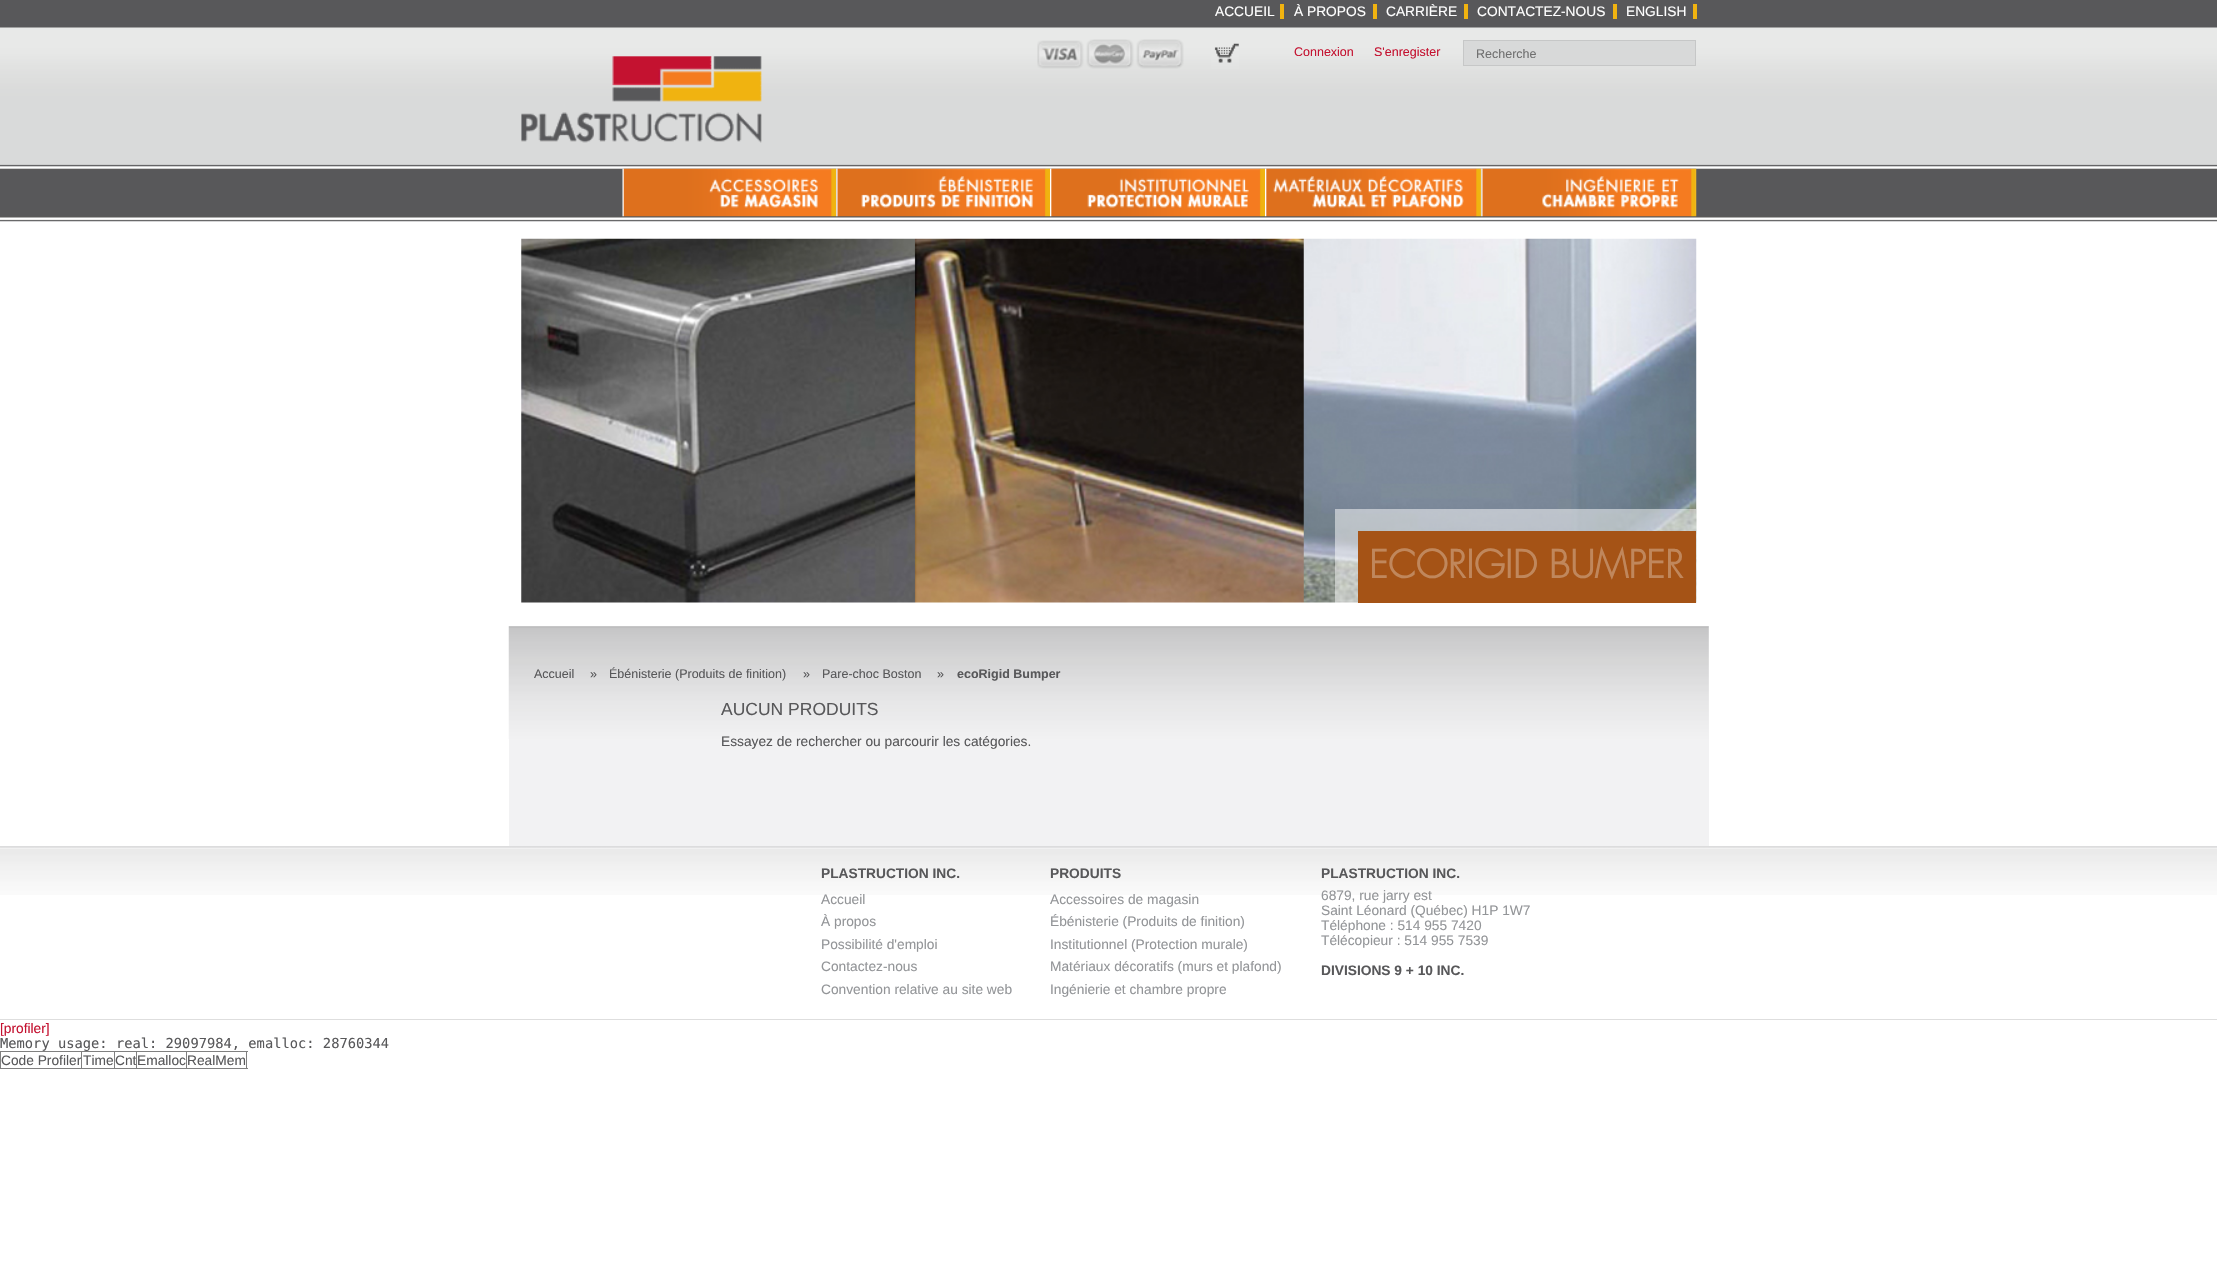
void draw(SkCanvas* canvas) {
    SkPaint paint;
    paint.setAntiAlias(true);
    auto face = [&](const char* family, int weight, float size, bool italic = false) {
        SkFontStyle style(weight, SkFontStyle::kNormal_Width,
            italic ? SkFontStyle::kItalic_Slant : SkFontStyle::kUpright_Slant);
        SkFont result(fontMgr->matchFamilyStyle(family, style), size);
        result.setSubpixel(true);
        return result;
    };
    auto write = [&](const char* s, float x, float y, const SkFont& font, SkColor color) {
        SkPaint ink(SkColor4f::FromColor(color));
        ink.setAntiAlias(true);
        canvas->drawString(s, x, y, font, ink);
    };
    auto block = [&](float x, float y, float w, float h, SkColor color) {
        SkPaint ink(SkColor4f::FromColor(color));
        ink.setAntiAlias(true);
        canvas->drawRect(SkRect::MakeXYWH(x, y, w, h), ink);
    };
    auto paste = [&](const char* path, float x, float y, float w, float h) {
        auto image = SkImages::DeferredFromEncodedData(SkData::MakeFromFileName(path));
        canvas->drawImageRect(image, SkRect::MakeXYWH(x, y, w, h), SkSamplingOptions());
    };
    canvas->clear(SK_ColorWHITE);
    paste("pic1.png", 0, 0, 2217, 222);
    auto kFont1 = face("Liberation Sans", 400, 13.75f);
    write("ACCUEIL", 1215, 16, kFont1, SK_ColorWHITE);
    block(1280, 4, 4, 15, SkColorSetRGB(240, 179, 16));
    write("À PROPOS", 1294, 16, kFont1, SK_ColorWHITE);
    block(1373, 4, 4, 15, SkColorSetRGB(240, 179, 16));
    write("CARRIÈRE", 1386, 16, kFont1, SK_ColorWHITE);
    block(1464, 4, 4, 15, SkColorSetRGB(240, 179, 16));
    write("CONTACTEZ-NOUS", 1477, 16, kFont1, SK_ColorWHITE);
    block(1613, 4, 4, 15, SkColorSetRGB(240, 179, 16));
    write("ENGLISH", 1626, 16, kFont1, SK_ColorWHITE);
    block(1693, 4, 4, 15, SkColorSetRGB(240, 179, 16));
    paste("pic2.png", 1037, 39, 202, 30);
    auto kFont2 = face("Liberation Sans", 400, 12.5f);
    write("Connexion", 1294, 56, kFont2, SkColorSetRGB(196, 18, 48));
    write("S'enregister", 1374, 56, kFont2, SkColorSetRGB(196, 18, 48));
    paint.setColor(SkColorSetRGB(216, 217, 217));
    canvas->drawRect(SkRect::MakeXYWH(1463.5f, 40.5f, 232, 25), paint);
    paint.setStyle(SkPaint::kStroke_Style);
    paint.setStrokeWidth(1);
    paint.setColor(SkColorSetRGB(198, 199, 199));
    canvas->drawRect(SkRect::MakeXYWH(1463.5f, 40.5f, 232, 25), paint);
    write("Recherche", 1476, 58, kFont2, SkColorSetRGB(112, 112, 112));
    paste("pic3.png", 521, 56, 241, 87);
    paste("pic4.png", 622, 168, 215, 49);
    paste("pic5.png", 836, 168, 214, 49);
    paste("pic6.png", 1050, 168, 215, 49);
    paste("pic7.png", 1265, 168, 217, 49);
    paste("pic8.png", 1481, 168, 216, 49);
    paste("pic9.png", 521, 238, 1176, 365);
    block(1335, 509, 361, 94, SkColorSetARGB(128, 255, 255, 255));
    block(1358, 531, 338, 72, SkColorSetRGB(165, 83, 22));
    auto kFont3 = face("Futura", 700, 37.5f);
    write("ECORIGID BUMPER", 1369, 578, kFont3, SkColorSetRGB(192, 135, 92));
    block(509, 626, 1200, 220, SkColorSetRGB(242, 242, 243));
    paste("pic10.png", 508, 626, 1201, 113);
    write("Accueil", 534, 678, kFont2, SkColorSetRGB(88, 88, 90));
    write("»", 590, 678, kFont2, SkColorSetRGB(88, 88, 90));
    write("Ébénisterie (Produits de finition)", 609, 678, kFont2, SkColorSetRGB(88, 88, 90));
    write("»", 803, 678, kFont2, SkColorSetRGB(88, 88, 90));
    write("Pare-choc Boston", 822, 678, kFont2, SkColorSetRGB(88, 88, 90));
    write("»", 937, 678, kFont2, SkColorSetRGB(88, 88, 90));
    auto kFont4 = face("Liberation Sans", 700, 12.5f);
    write("ecoRigid Bumper", 957, 678, kFont4, SkColorSetRGB(88, 88, 90));
    auto kFont5 = face("Liberation Sans", 400, 17.5f);
    write("AUCUN PRODUITS", 721, 715, kFont5, SkColorSetRGB(88, 88, 90));
    write("Essayez de rechercher ou parcourir les catégories.", 721, 746, kFont1, SkColorSetRGB(88, 88, 90));
    paste("pic11.png", 0, 846, 2217, 49);
    block(0, 1019, 2217, 1, SkColorSetRGB(222, 222, 222));
    auto kFont6 = face("Liberation Sans", 700, 13.75f);
    write("PLASTRUCTION INC.", 821, 878, kFont6, SkColorSetRGB(88, 88, 90));
    write("Accueil", 821, 904, kFont1, SkColorSetRGB(147, 149, 152));
    write("À propos", 821, 926, kFont1, SkColorSetRGB(147, 149, 152));
    write("Possibilité d'emploi", 821, 949, kFont1, SkColorSetRGB(147, 149, 152));
    write("Contactez-nous", 821, 971, kFont1, SkColorSetRGB(147, 149, 152));
    write("Convention relative au site web", 821, 994, kFont1, SkColorSetRGB(147, 149, 152));
    write("PRODUITS", 1050, 878, kFont6, SkColorSetRGB(88, 88, 90));
    write("Accessoires de magasin", 1050, 904, kFont1, SkColorSetRGB(147, 149, 152));
    write("Ébénisterie (Produits de finition)", 1050, 926, kFont1, SkColorSetRGB(147, 149, 152));
    write("Institutionnel (Protection murale)", 1050, 949, kFont1, SkColorSetRGB(147, 149, 152));
    write("Matériaux décoratifs (murs et plafond)", 1050, 971, kFont1, SkColorSetRGB(147, 149, 152));
    write("Ingénierie et chambre propre", 1050, 994, kFont1, SkColorSetRGB(147, 149, 152));
    write("PLASTRUCTION INC.", 1321, 878, kFont6, SkColorSetRGB(88, 88, 90));
    write("6879, rue jarry est", 1321, 900, kFont1, SkColorSetRGB(147, 149, 152));
    write("Saint Léonard (Québec) H1P 1W7", 1321, 915, kFont1, SkColorSetRGB(147, 149, 152));
    write("Téléphone : 514 955 7420", 1321, 930, kFont1, SkColorSetRGB(147, 149, 152));
    write("Télécopieur : 514 955 7539", 1321, 945, kFont1, SkColorSetRGB(147, 149, 152));
    write("DIVISIONS 9 + 10 INC.", 1321, 975, kFont6, SkColorSetRGB(88, 88, 90));
    write("[profiler]", 0, 1033, kFont1, SkColorSetRGB(196, 18, 48));
    auto kFont7 = face("DejaVu Sans Mono", 400, 13.75f);
    write("Memory usage: real: 29097984, emalloc: 28760344", 0, 1048, kFont7, SkColorSetRGB(88, 88, 90));
    block(0, 1051, 248, 1, SkColorSetRGB(128, 128, 128));
    block(246, 1051, 1, 18, SkColorSetRGB(128, 128, 128));
    block(0, 1068, 248, 1, SkColorSetRGB(128, 128, 128));
    block(0, 1051, 1, 18, SkColorSetRGB(128, 128, 128));
    block(81, 1051, 1, 18, SkColorSetRGB(128, 128, 128));
    write("Code Profiler", 1, 1065, kFont1, SkColorSetRGB(88, 88, 90));
    write("Time", 83, 1065, kFont1, SkColorSetRGB(88, 88, 90));
    block(114, 1051, 1, 18, SkColorSetRGB(128, 128, 128));
    write("Cnt", 115, 1065, kFont1, SkColorSetRGB(88, 88, 90));
    block(136, 1051, 1, 18, SkColorSetRGB(128, 128, 128));
    write("Emalloc", 137, 1065, kFont1, SkColorSetRGB(88, 88, 90));
    block(186, 1051, 1, 18, SkColorSetRGB(128, 128, 128));
    write("RealMem", 187, 1065, kFont1, SkColorSetRGB(88, 88, 90));
}
